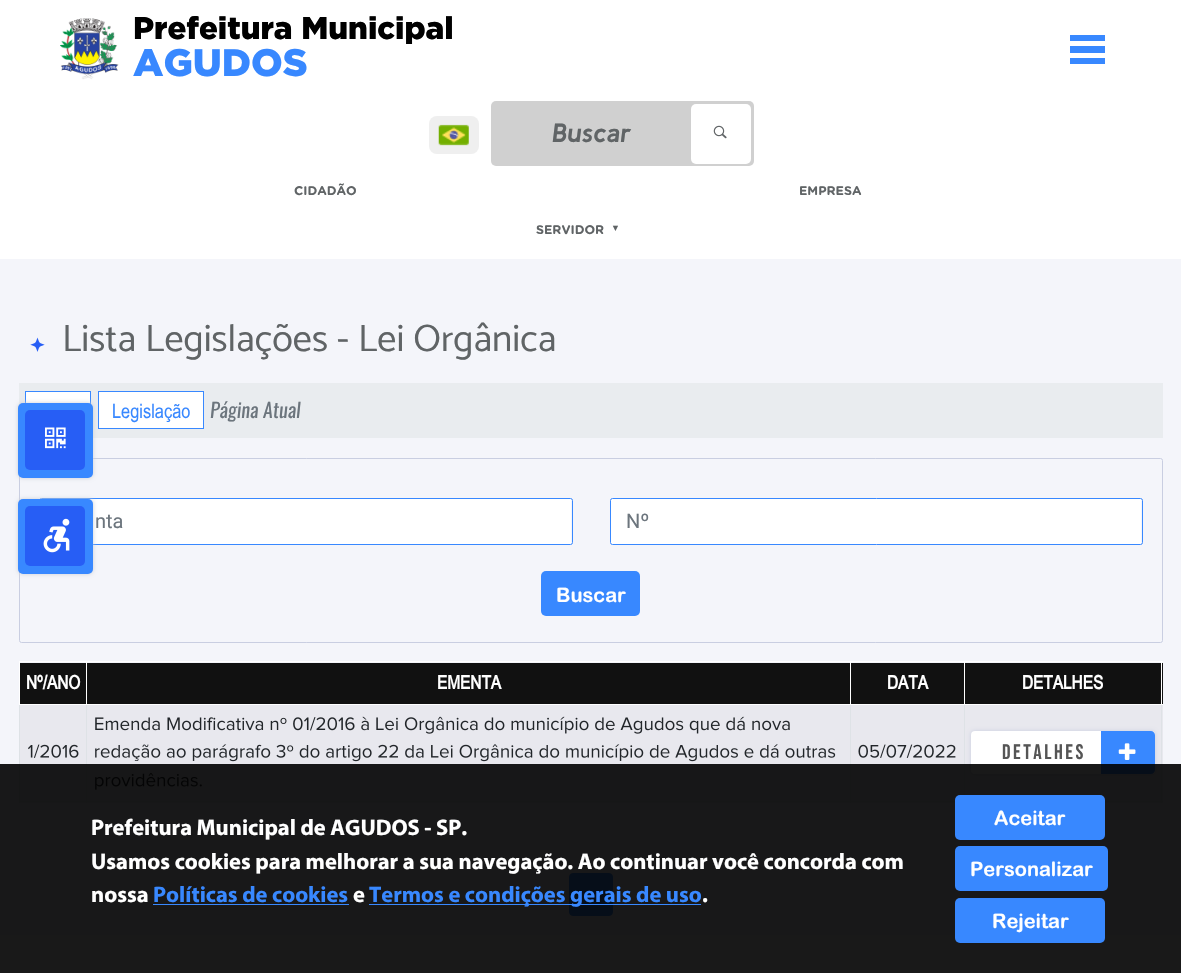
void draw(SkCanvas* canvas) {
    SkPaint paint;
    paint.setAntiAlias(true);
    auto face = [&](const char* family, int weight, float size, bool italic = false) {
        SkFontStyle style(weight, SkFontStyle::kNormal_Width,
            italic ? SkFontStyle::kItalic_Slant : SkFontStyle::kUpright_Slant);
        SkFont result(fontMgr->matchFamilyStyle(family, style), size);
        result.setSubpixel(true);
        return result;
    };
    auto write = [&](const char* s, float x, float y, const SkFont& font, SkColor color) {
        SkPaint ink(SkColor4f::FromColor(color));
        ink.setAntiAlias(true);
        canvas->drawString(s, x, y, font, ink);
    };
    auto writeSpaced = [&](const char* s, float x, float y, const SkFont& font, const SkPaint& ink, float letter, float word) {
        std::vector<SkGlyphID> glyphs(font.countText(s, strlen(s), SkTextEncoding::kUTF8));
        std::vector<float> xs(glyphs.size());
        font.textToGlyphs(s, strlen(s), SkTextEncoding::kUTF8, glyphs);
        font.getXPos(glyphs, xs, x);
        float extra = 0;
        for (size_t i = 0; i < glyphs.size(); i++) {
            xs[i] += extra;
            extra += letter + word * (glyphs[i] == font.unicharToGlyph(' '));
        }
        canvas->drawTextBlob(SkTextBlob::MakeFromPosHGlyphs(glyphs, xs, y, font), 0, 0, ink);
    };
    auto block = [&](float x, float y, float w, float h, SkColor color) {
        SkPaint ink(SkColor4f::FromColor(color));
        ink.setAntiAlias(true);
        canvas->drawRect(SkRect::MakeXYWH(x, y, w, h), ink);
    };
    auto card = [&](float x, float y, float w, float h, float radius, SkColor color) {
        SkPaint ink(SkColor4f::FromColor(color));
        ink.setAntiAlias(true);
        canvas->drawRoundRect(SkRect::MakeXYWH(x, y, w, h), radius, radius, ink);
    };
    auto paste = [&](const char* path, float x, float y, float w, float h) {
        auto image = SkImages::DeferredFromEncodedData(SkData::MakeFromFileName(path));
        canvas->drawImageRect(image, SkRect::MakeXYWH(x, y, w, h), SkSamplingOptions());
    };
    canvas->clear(SkColorSetRGB(244, 245, 250));
    block(0, 0, 1181, 259, SK_ColorWHITE);
    paste("pic1.png", 60, 18, 59, 62);
    auto kFont1 = face("Gotham", 900, 31.25f);
    write("Prefeitura Municipal", 133, 39, kFont1, SK_ColorBLACK);
    auto kFont2 = face("Gotham", 900, 38.25f);
    write("AGUDOS", 133, 76, kFont2, SkColorSetRGB(56, 136, 255));
    block(1070, 35, 35, 6, SkColorSetRGB(56, 136, 255));
    block(1070, 46, 35, 7, SkColorSetRGB(56, 136, 255));
    block(1070, 58, 35, 6, SkColorSetRGB(56, 136, 255));
    card(429, 116, 50, 38, 8, SkColorSetRGB(239, 239, 239));
    paste("pic2.png", 438, 124, 31, 22);
    card(491, 101, 263, 65, 5, SkColorSetRGB(208, 208, 208));
    auto kFont3 = face("Kulim Park", 700, 26.5f, true);
    write("Buscar", 552, 142, kFont3, SkColorSetRGB(96, 100, 102));
    card(691, 104, 60, 60, 5, SK_ColorWHITE);
    paste("pic3.png", 713, 125, 14, 14);
    auto kFont4 = face("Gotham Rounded", 700, 12.5f);
    write("CIDADÃO", 294, 195, kFont4, SkColorSetRGB(96, 100, 102));
    write("EMPRESA", 799, 195, kFont4, SkColorSetRGB(96, 100, 102));
    write("SERVIDOR", 536, 234, kFont4, SkColorSetRGB(96, 100, 102));
    auto kFont5 = face("Liberation Serif", 400, 9);
    write("▼", 611, 231, kFont5, SkColorSetRGB(96, 100, 102));
    paste("pic4.png", 30, 337, 15, 15);
    auto kFont6 = face("Catamaran", 400, 38.25f);
    write("Lista Legislações - Lei Orgânica", 62, 351, kFont6, SkColorSetRGB(96, 100, 102));
    block(19, 383, 1144, 55, SkColorSetRGB(233, 236, 239));
    block(26, 392, 64, 12, SK_ColorWHITE);
    paint.setStyle(SkPaint::kStroke_Style);
    paint.setStrokeWidth(1);
    paint.setColor(SkColorSetRGB(56, 136, 255));
    canvas->drawRect(SkRect::MakeXYWH(25.5f, 391.5f, 65, 37), paint);
    paint.setStyle(SkPaint::kFill_Style);
    paint.setColor(SK_ColorWHITE);
    canvas->drawRect(SkRect::MakeXYWH(98.5f, 391.5f, 105, 37), paint);
    paint.setStyle(SkPaint::kStroke_Style);
    paint.setColor(SkColorSetRGB(56, 136, 255));
    canvas->drawRect(SkRect::MakeXYWH(98.5f, 391.5f, 105, 37), paint);
    auto kFont7 = face("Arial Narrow", 400, 20);
    write("Legislação", 112, 418, kFont7, SkColorSetRGB(56, 136, 255));
    auto kFont8 = face("Oswald", 400, 20, true);
    write("Página Atual", 210, 418, kFont8, SkColorSetRGB(108, 117, 125));
    paint.setColor(SkColorSetRGB(201, 206, 225));
    canvas->drawRoundRect(SkRect::MakeXYWH(19.5f, 458.5f, 1143, 184), 2, 2, paint);
    card(40, 499, 531, 45, 1, SK_ColorWHITE);
    paint.setColor(SkColorSetRGB(56, 136, 255));
    canvas->drawRoundRect(SkRect::MakeXYWH(39.5f, 498.5f, 533, 46), 2, 2, paint);
    auto kFont9 = face("Roboto", 400, 20);
    write("nta", 95, 528, kFont9, SkColorSetRGB(108, 117, 125));
    card(611, 499, 530, 45, 1, SK_ColorWHITE);
    canvas->drawRoundRect(SkRect::MakeXYWH(610.5f, 498.5f, 532, 46), 2, 2, paint);
    write("Nº", 626, 528, kFont9, SkColorSetRGB(108, 117, 125));
    card(541, 571, 99, 45, 5, SkColorSetRGB(56, 136, 255));
    auto kFont10 = face("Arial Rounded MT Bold", 700, 20);
    write("Buscar", 556, 602, kFont10, SK_ColorWHITE);
    block(20, 705, 1143, 98, SkColorSetRGB(232, 232, 238));
    block(1161, 705, 1, 98, SkColorSetRGB(222, 226, 230));
    block(19, 801, 1144, 1, SkColorSetRGB(222, 226, 230));
    block(19, 705, 1, 98, SkColorSetRGB(222, 226, 230));
    block(20, 663, 830, 41, SkColorSetRGB(17, 17, 17));
    block(964, 661, 199, 1, SK_ColorWHITE);
    block(965, 663, 198, 41, SkColorSetRGB(17, 17, 17));
    block(1161, 661, 1, 44, SK_ColorWHITE);
    block(964, 704, 1, 99, SkColorSetRGB(222, 226, 230));
    block(964, 704, 199, 1, SK_ColorWHITE);
    block(964, 661, 1, 44, SK_ColorWHITE);
    block(850, 661, 115, 1, SK_ColorWHITE);
    block(850, 704, 1, 99, SkColorSetRGB(222, 226, 230));
    block(850, 704, 115, 1, SK_ColorWHITE);
    block(850, 661, 1, 44, SK_ColorWHITE);
    block(86, 661, 765, 1, SK_ColorWHITE);
    block(86, 704, 1, 99, SkColorSetRGB(222, 226, 230));
    block(86, 704, 765, 1, SK_ColorWHITE);
    block(86, 661, 1, 44, SK_ColorWHITE);
    block(19, 661, 69, 1, SK_ColorWHITE);
    block(19, 704, 69, 1, SK_ColorWHITE);
    block(19, 661, 1, 44, SK_ColorWHITE);
    auto kFont11 = face("Arial Narrow", 700, 18.75f);
    write("Nº/ANO", 26, 689, kFont11, SK_ColorWHITE);
    write("EMENTA", 437, 689, kFont11, SK_ColorWHITE);
    block(851, 663, 113, 41, SkColorSetRGB(17, 17, 17));
    write("DATA", 887, 689, kFont11, SK_ColorWHITE);
    write("DETALHES", 1022, 689, kFont11, SK_ColorWHITE);
    paste("pic5.png", 28, 744, 51, 14);
    paste("pic6.png", 95, 716, 695, 18);
    paste("pic7.png", 95, 744, 741, 18);
    paste("pic8.png", 95, 773, 107, 17);
    paste("pic9.png", 858, 744, 98, 14);
    paint.setStyle(SkPaint::kFill_Style);
    paint.setColor(SkColorSetRGB(201, 206, 225));
    paint.setMaskFilter(SkMaskFilter::MakeBlur(kNormal_SkBlurStyle, 2));
    canvas->drawRoundRect(SkRect::MakeXYWH(971, 731, 184, 43), 4, 4, paint);
    paint.setMaskFilter(nullptr);
    card(971, 731, 184, 43, 4, SK_ColorWHITE);
    auto kFont12 = face("Bebas Neue", 400, 21);
    paint.setColor(SkColorSetRGB(85, 85, 85));
    writeSpaced("Detalhes", 1002, 759, kFont12, paint, 2.5f, 0);
    paint.setColor(SkColorSetRGB(56, 136, 255));
    canvas->drawPath(SkPathBuilder().moveTo(1100, 731).lineTo(1151, 731).cubicTo(1153, 731, 1155, 733, 1155, 735).lineTo(1155, 770).cubicTo(1155, 772, 1153, 774, 1151, 774).lineTo(1100, 774).close().detach(), paint);
    block(1100, 731, 1, 43, SK_ColorWHITE);
    paste("pic10.png", 1118, 743, 18, 17);
    canvas->drawRoundRect(SkRect::MakeXYWH(569.5f, 873.5f, 43, 42), 3.5f, 3.5f, paint);
    paint.setStyle(SkPaint::kStroke_Style);
    canvas->drawRoundRect(SkRect::MakeXYWH(569.5f, 873.5f, 43, 42), 3.5f, 3.5f, paint);
    block(0, 935, 1181, 38, SK_ColorWHITE);
    block(0, 764, 1181, 209, SkColorSetARGB(230, 0, 0, 0));
    auto kFont13 = face("Myriad", 700, 22.5f);
    write("Prefeitura Municipal de AGUDOS - SP.", 91, 835, kFont13, SK_ColorWHITE);
    write("Usamos cookies para melhorar a sua navegação. Ao continuar você concorda com", 91, 869, kFont13, SK_ColorWHITE);
    write("nossa", 91, 902, kFont13, SK_ColorWHITE);
    write("Políticas de cookies", 153, 902, kFont13, SkColorSetRGB(56, 136, 255));
    block(153, 904, 196, 1, SkColorSetRGB(56, 136, 255));
    write("e", 353, 902, kFont13, SK_ColorWHITE);
    block(369, 904, 332, 1, SkColorSetRGB(56, 136, 255));
    write("Termos e condições gerais de uso", 369, 902, kFont13, SkColorSetRGB(56, 136, 255));
    write(".", 702, 902, kFont13, SK_ColorWHITE);
    card(955, 795, 150, 45, 5, SkColorSetRGB(56, 136, 255));
    write("Aceitar", 994, 825, kFont10, SK_ColorWHITE);
    card(955, 846, 153, 45, 5, SkColorSetRGB(56, 136, 255));
    write("Personalizar", 970, 876, kFont10, SK_ColorWHITE);
    card(955, 898, 150, 45, 5, SkColorSetRGB(56, 136, 255));
    write("Rejeitar", 992, 928, kFont10, SK_ColorWHITE);
    paint.setStyle(SkPaint::kFill_Style);
    paint.setColor(SkColorSetRGB(203, 208, 214));
    paint.setMaskFilter(SkMaskFilter::MakeBlur(kNormal_SkBlurStyle, 2));
    canvas->drawRoundRect(SkRect::MakeXYWH(18, 403, 75, 75), 5, 5, paint);
    paint.setMaskFilter(nullptr);
    card(18, 403, 75, 75, 5, SkColorSetRGB(56, 136, 255));
    card(25, 410, 60, 60, 5, SkColorSetRGB(39, 94, 245));
    paste("pic11.png", 45, 427, 21, 22);
    paint.setMaskFilter(SkMaskFilter::MakeBlur(kNormal_SkBlurStyle, 2));
    canvas->drawRoundRect(SkRect::MakeXYWH(18, 499, 75, 75), 5, 5, paint);
    paint.setMaskFilter(nullptr);
    card(18, 499, 75, 75, 5, SkColorSetRGB(56, 136, 255));
    card(25, 506, 60, 60, 5, SkColorSetRGB(39, 94, 245));
    paste("pic12.png", 43, 518, 27, 35);
}
